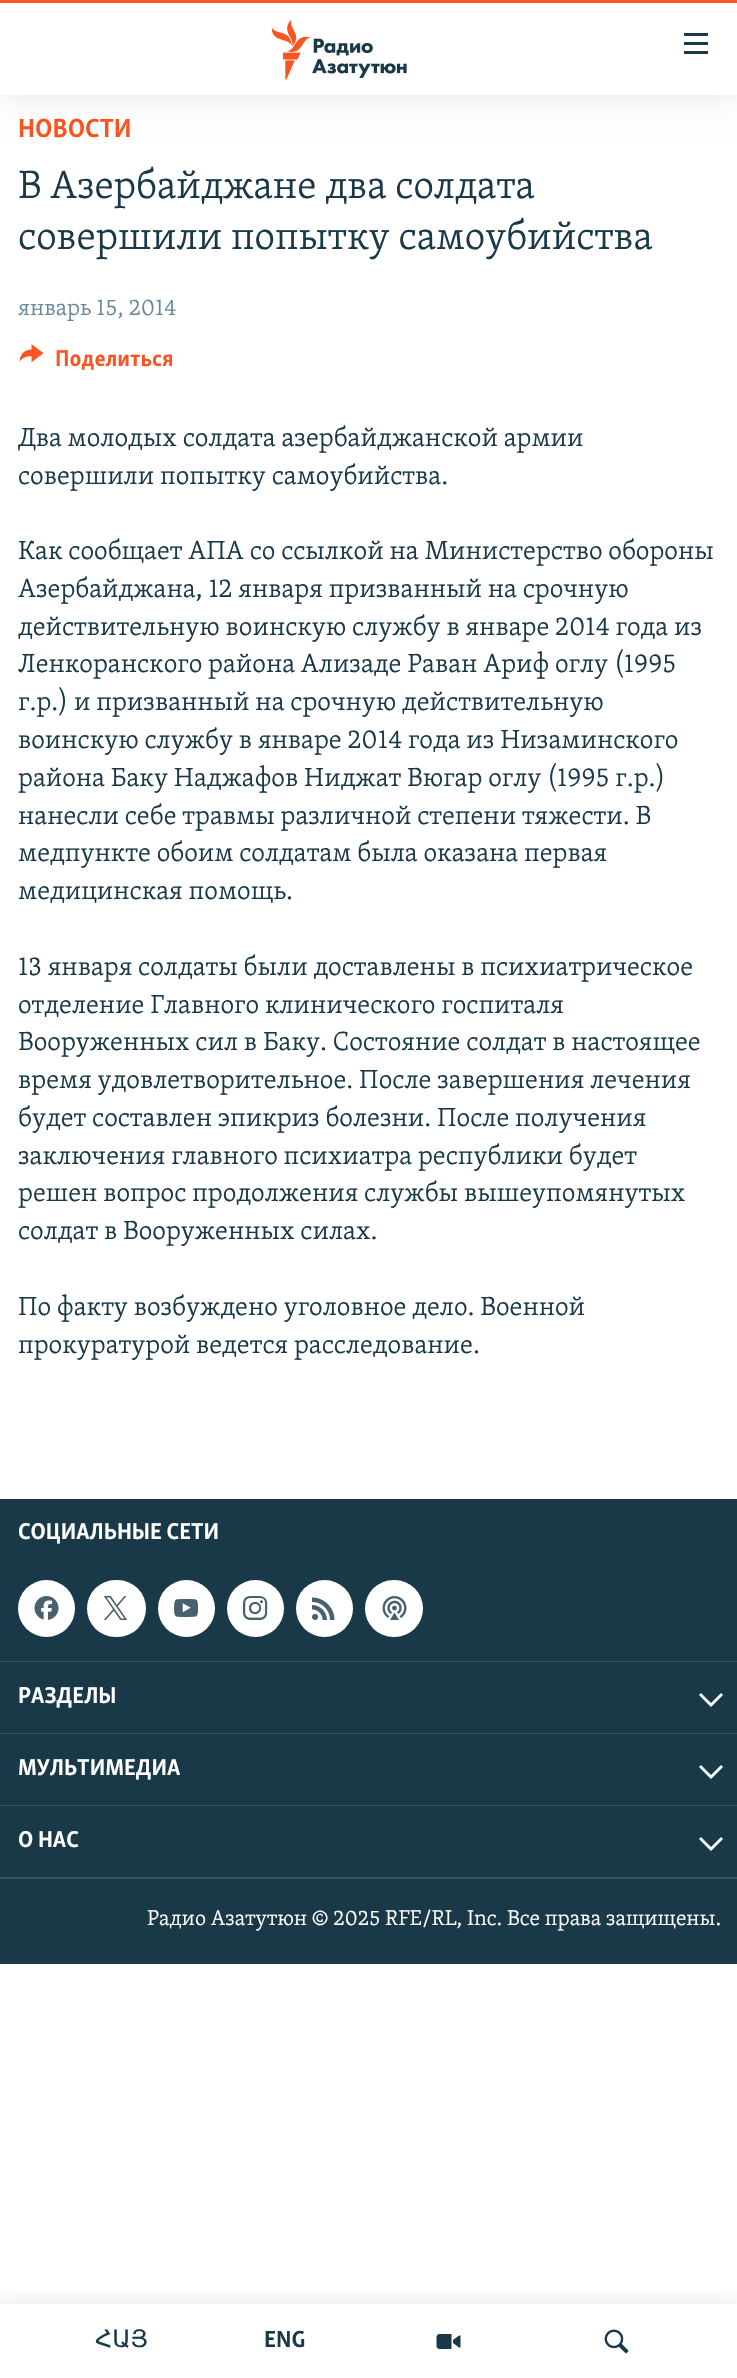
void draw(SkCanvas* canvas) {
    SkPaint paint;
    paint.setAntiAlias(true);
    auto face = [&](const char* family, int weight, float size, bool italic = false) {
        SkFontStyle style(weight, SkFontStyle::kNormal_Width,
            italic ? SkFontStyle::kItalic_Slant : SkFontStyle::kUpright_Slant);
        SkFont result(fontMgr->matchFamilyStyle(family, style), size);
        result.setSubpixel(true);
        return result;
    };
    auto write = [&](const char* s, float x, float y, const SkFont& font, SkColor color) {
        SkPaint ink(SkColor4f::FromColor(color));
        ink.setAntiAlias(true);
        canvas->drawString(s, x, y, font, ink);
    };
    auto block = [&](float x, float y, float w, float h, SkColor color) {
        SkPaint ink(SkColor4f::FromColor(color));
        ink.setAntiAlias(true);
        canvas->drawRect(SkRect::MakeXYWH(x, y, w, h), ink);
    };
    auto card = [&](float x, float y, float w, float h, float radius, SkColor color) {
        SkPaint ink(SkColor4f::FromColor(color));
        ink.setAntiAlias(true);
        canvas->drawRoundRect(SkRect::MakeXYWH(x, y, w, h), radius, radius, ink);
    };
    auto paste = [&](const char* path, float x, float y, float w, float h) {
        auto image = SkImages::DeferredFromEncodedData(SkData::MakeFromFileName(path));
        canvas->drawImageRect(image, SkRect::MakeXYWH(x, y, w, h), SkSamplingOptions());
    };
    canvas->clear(SK_ColorWHITE);
    auto kFont1 = face("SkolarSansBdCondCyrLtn", 700, 27);
    write("НОВОСТИ", 18, 137, kFont1, SkColorSetRGB(250, 84, 32));
    auto kFont2 = face("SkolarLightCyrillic", 300, 40.5f);
    write("В Азербайджане два солдата", 18, 198, kFont2, SkColorSetRGB(26, 57, 72));
    write("совершили попытку самоубийства", 18, 249, kFont2, SkColorSetRGB(26, 57, 72));
    auto kFont3 = face("SkolarLightCyrillic", 300, 23.6f);
    write("январь 15, 2014", 18, 315, kFont3, SkColorSetRGB(103, 138, 155));
    paste("pic1.png", 19, 344, 25, 18);
    auto kFont4 = face("SkolarSansBdCondCyrLtn", 700, 23.6f);
    write("Поделиться", 55, 366, kFont4, SkColorSetRGB(250, 84, 32));
    auto kFont5 = face("SkolarLightCyrillic", 300, 27);
    write("Два молодых солдата азербайджанской армии", 18, 446, kFont5, SkColorSetRGB(26, 57, 72));
    write("совершили попытку самоубийства.", 18, 484, kFont5, SkColorSetRGB(26, 57, 72));
    write("Как сообщает АПА со ссылкой на Министерство обороны", 18, 559, kFont5, SkColorSetRGB(26, 57, 72));
    write("Азербайджана, 12 января призванный на срочную", 18, 597, kFont5, SkColorSetRGB(26, 57, 72));
    write("действительную воинскую службу в январе 2014 года из", 18, 635, kFont5, SkColorSetRGB(26, 57, 72));
    write("Ленкоранского района Ализаде Раван Ариф оглу (1995", 18, 672, kFont5, SkColorSetRGB(26, 57, 72));
    write("г.р.) и призванный на срочную действительную", 18, 710, kFont5, SkColorSetRGB(26, 57, 72));
    write("воинскую службу в январе 2014 года из Низаминского", 18, 748, kFont5, SkColorSetRGB(26, 57, 72));
    write("района Баку Наджафов Ниджат Вюгар оглу (1995 г.р.)", 18, 786, kFont5, SkColorSetRGB(26, 57, 72));
    write("нанесли себе травмы различной степени тяжести. В", 18, 824, kFont5, SkColorSetRGB(26, 57, 72));
    write("медпункте обоим солдатам была оказана первая", 18, 861, kFont5, SkColorSetRGB(26, 57, 72));
    write("медицинская помощь.", 18, 899, kFont5, SkColorSetRGB(26, 57, 72));
    write("13 января солдаты были доставлены в психиатрическое", 18, 975, kFont5, SkColorSetRGB(26, 57, 72));
    write("отделение Главного клинического госпиталя", 18, 1013, kFont5, SkColorSetRGB(26, 57, 72));
    write("Вооруженных сил в Баку. Состояние солдат в настоящее", 18, 1050, kFont5, SkColorSetRGB(26, 57, 72));
    write("время удовлетворительное. После завершения лечения", 18, 1088, kFont5, SkColorSetRGB(26, 57, 72));
    write("будет составлен эпикриз болезни. После получения", 18, 1126, kFont5, SkColorSetRGB(26, 57, 72));
    write("заключения главного психиатра республики будет", 18, 1164, kFont5, SkColorSetRGB(26, 57, 72));
    write("решен вопрос продолжения службы вышеупомянутых", 18, 1201, kFont5, SkColorSetRGB(26, 57, 72));
    write("солдат в Вооруженных силах.", 18, 1239, kFont5, SkColorSetRGB(26, 57, 72));
    write("По факту возбуждено уголовное дело. Военной", 18, 1315, kFont5, SkColorSetRGB(26, 57, 72));
    write("прокуратурой ведется расследование.", 18, 1353, kFont5, SkColorSetRGB(26, 57, 72));
    block(0, 1499, 737, 465, SkColorSetRGB(26, 57, 72));
    block(0, 1877, 737, 2, SkColorSetRGB(62, 79, 87));
    write("СОЦИАЛЬНЫЕ СЕТИ", 18, 1539, kFont4, SK_ColorWHITE);
    paint.setColor(SK_ColorWHITE);
    canvas->drawCircle(46.5f, 1608.5f, 28.5f, paint);
    paste("pic2.png", 34, 1596, 25, 24);
    card(87, 1580, 59, 57, 28.5f, SK_ColorWHITE);
    paste("pic3.png", 103, 1596, 25, 24);
    canvas->drawCircle(186.5f, 1608.5f, 28.5f, paint);
    paste("pic4.png", 174, 1599, 24, 18);
    canvas->drawCircle(255.5f, 1608.5f, 28.5f, paint);
    paste("pic5.png", 243, 1596, 25, 24);
    canvas->drawCircle(324.5f, 1608.5f, 28.5f, paint);
    paste("pic6.png", 312, 1597, 23, 23);
    card(365, 1580, 58, 57, 28.5f, SK_ColorWHITE);
    paste("pic7.png", 382, 1596, 25, 24);
    block(0, 1661, 737, 1, SkColorSetRGB(62, 79, 87));
    write("РАЗДЕЛЫ", 18, 1703, kFont4, SK_ColorWHITE);
    canvas->drawPath(SkPathBuilder().moveTo(699, 1695).lineTo(711, 1707).lineTo(723, 1695).lineTo(721, 1693).lineTo(711, 1703).lineTo(701, 1693).close().detach(), paint);
    block(0, 1733, 737, 1, SkColorSetRGB(62, 79, 87));
    write("МУЛЬТИМЕДИА", 18, 1775, kFont4, SK_ColorWHITE);
    canvas->drawPath(SkPathBuilder().moveTo(699, 1767).lineTo(711, 1779).lineTo(723, 1767).lineTo(721, 1765).lineTo(711, 1775).lineTo(701, 1765).close().detach(), paint);
    block(0, 1805, 737, 1, SkColorSetRGB(62, 79, 87));
    write("О НАС", 18, 1847, kFont4, SK_ColorWHITE);
    canvas->drawPath(SkPathBuilder().moveTo(699, 1839).lineTo(711, 1851).lineTo(723, 1839).lineTo(721, 1837).lineTo(711, 1847).lineTo(701, 1837).close().detach(), paint);
    auto kFont6 = face("SkolarLightCyrillic", 300, 21.95f);
    write("Радио Азатутюн © 2025 RFE/RL, Inc. Все права защищены.", 147, 1925, kFont6, SK_ColorWHITE);
    paint.setColor(SkColorSetARGB(26, 0, 0, 0));
    paint.setMaskFilter(SkMaskFilter::MakeBlur(kNormal_SkBlurStyle, 15));
    canvas->drawRect(SkRect::MakeXYWH(0, 0, 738, 95), paint);
    paint.setMaskFilter(nullptr);
    block(0, 3, 737, 92, SK_ColorWHITE);
    block(0, 0, 737, 3, SkColorSetRGB(250, 84, 32));
    paste("pic8.png", 272, 20, 135, 60);
    paste("pic9.png", 684, 33, 24, 21);
    canvas->save();
    canvas->clipRect(SkRect::MakeXYWH(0, 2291, 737, 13));
    paint.setMaskFilter(SkMaskFilter::MakeBlur(kNormal_SkBlurStyle, 15));
    canvas->drawRect(SkRect::MakeXYWH(0, 2304, 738, 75), paint);
    paint.setMaskFilter(nullptr);
    canvas->restore();
    auto kFont7 = face("DejaVu Sans", 400, 24);
    write("ՀԱՅ", 95, 2347, kFont7, SkColorSetRGB(26, 57, 72));
    auto kFont8 = face("SkolarSansBdCondCyrLtn", 700, 24);
    write("ENG", 264, 2347, kFont8, SkColorSetRGB(26, 57, 72));
    paste("pic10.png", 436, 2334, 25, 15);
    paste("pic11.png", 604, 2329, 25, 25);
}
